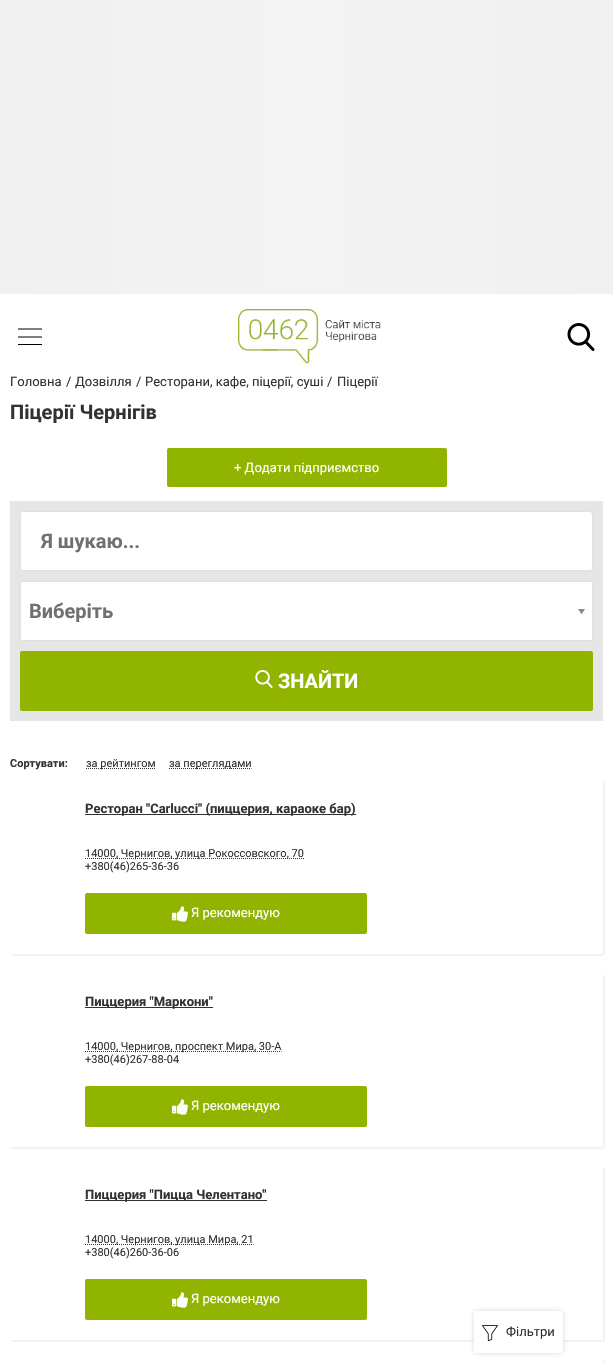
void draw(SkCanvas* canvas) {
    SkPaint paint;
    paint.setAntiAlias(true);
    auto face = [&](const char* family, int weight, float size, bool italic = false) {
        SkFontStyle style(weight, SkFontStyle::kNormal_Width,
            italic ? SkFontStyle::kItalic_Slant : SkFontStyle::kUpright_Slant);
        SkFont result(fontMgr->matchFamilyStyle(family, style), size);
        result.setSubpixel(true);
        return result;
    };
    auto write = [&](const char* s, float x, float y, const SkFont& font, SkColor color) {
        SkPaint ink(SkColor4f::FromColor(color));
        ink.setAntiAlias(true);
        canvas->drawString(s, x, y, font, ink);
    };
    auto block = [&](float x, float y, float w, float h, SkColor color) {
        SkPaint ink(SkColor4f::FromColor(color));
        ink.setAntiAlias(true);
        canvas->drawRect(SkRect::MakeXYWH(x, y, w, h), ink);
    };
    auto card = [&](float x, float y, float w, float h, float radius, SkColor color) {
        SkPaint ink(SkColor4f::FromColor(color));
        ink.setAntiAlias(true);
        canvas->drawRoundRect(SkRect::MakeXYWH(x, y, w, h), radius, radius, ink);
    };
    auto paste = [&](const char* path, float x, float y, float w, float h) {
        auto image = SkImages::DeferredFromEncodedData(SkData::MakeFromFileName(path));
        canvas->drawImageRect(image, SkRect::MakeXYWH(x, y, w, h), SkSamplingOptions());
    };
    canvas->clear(SK_ColorWHITE);
    {
        const SkColor colors[] = {SkColorSetRGB(240, 240, 240), SkColorSetRGB(244, 244, 244), SkColorSetRGB(240, 240, 240)};
        const float stops[] = {0, 0.5f, 1};
        const SkPoint ends[] = {{0, 147}, {613, 147}};
        paint.setShader(SkGradientShader::MakeLinear(ends, colors, stops, 3, SkTileMode::kClamp));
        paint.setAlpha(255);
    }
    canvas->drawRect(SkRect::MakeXYWH(0, 0, 613, 294), paint);
    paint.setStyle(SkPaint::kStroke_Style);
    paint.setStrokeWidth(1.2f);
    paint.setShader(nullptr);
    paint.setColor(SK_ColorBLACK);
    canvas->drawPath(SkPathBuilder().moveTo(18, 337).lineTo(42, 337).moveTo(18, 329).lineTo(42, 329).detach(), paint);
    block(18, 344, 24, 1, SK_ColorBLACK);
    paste("pic1.png", 238, 309, 143, 55);
    paste("pic2.png", 567, 323, 28, 28);
    auto kFont1 = face("Roboto", 400, 13);
    write("Головна", 10, 386, kFont1, SkColorSetRGB(50, 50, 50));
    write("/", 66, 386, kFont1, SkColorSetRGB(50, 50, 50));
    write("Дозвілля", 75, 386, kFont1, SkColorSetRGB(50, 50, 50));
    write("/", 136, 386, kFont1, SkColorSetRGB(50, 50, 50));
    write("Ресторани, кафе, піцерії, суші", 145, 386, kFont1, SkColorSetRGB(50, 50, 50));
    write("/", 327, 386, kFont1, SkColorSetRGB(50, 50, 50));
    write("Піцерії", 337, 386, kFont1, SkColorSetRGB(50, 50, 50));
    auto kFont2 = face("Roboto", 700, 20);
    write("Піцерії Чернігів", 10, 419, kFont2, SkColorSetRGB(50, 50, 50));
    card(167, 448, 280, 39, 2, SkColorSetRGB(144, 180, 0));
    write("+ Додати підприємство", 234, 472, kFont1, SK_ColorWHITE);
    block(10, 501, 593, 220, SkColorSetRGB(230, 230, 230));
    card(20, 511, 573, 60, 3, SK_ColorWHITE);
    paint.setStrokeWidth(1);
    paint.setColor(SkColorSetARGB(38, 50, 50, 50));
    canvas->drawRoundRect(SkRect::MakeXYWH(20.5f, 511.5f, 572, 59), 2.5f, 2.5f, paint);
    write("Я шукаю...", 41, 548, kFont2, SkColorSetRGB(112, 112, 112));
    paint.setStyle(SkPaint::kFill_Style);
    paint.setColor(SK_ColorWHITE);
    canvas->drawRect(SkRect::MakeXYWH(20.5f, 581.5f, 572, 59), paint);
    paint.setStyle(SkPaint::kStroke_Style);
    paint.setColor(SkColorSetRGB(224, 224, 224));
    canvas->drawRect(SkRect::MakeXYWH(20.5f, 581.5f, 572, 59), paint);
    write("Виберіть", 29, 618, kFont2, SkColorSetRGB(112, 112, 112));
    paste("pic3.png", 578, 609, 7, 6);
    card(20, 651, 573, 60, 2, SkColorSetRGB(144, 180, 0));
    paste("pic4.png", 255, 670, 18, 18);
    write("ЗНАЙТИ", 278, 688, kFont2, SK_ColorWHITE);
    auto kFont3 = face("Roboto", 700, 11);
    write("Сортувати:", 10, 767, kFont3, SkColorSetRGB(50, 50, 50));
    paint.setColor(SkColorSetRGB(50, 50, 50));
    paint.setPathEffect(SkDashPathEffect::Make({{1, 1}}, 0));
    canvas->drawPath(SkPathBuilder().moveTo(86, 768.5f).lineTo(155.5f, 768.5f).detach(), paint);
    paint.setPathEffect(nullptr);
    auto kFont4 = face("Roboto", 400, 11);
    write("за рейтингом", 86, 767, kFont4, SkColorSetRGB(50, 50, 50));
    paint.setPathEffect(SkDashPathEffect::Make({{1, 1}}, 0));
    canvas->drawPath(SkPathBuilder().moveTo(169, 768.5f).lineTo(251.5f, 768.5f).detach(), paint);
    paint.setPathEffect(nullptr);
    write("за переглядами", 169, 767, kFont4, SkColorSetRGB(50, 50, 50));
    canvas->save();
    canvas->clipPath(SkPathBuilder(SkPathFillType::kEvenOdd).moveTo(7, 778).lineTo(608, 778).lineTo(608, 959).lineTo(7, 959).close().moveTo(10, 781).lineTo(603, 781).lineTo(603, 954).lineTo(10, 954).close().detach(), true);
    paint.setStyle(SkPaint::kFill_Style);
    paint.setColor(SkColorSetARGB(38, 90, 90, 90));
    paint.setMaskFilter(SkMaskFilter::MakeBlur(kNormal_SkBlurStyle, 1));
    canvas->drawRect(SkRect::MakeXYWH(11, 782, 593, 173), paint);
    paint.setMaskFilter(nullptr);
    canvas->restore();
    block(85, 814, 271, 1, SkColorSetRGB(50, 50, 50));
    auto kFont5 = face("Roboto", 700, 13);
    write("Ресторан \"Carlucci\" (пиццерия, караоке бар)", 85, 813, kFont5, SkColorSetRGB(50, 50, 50));
    paint.setStyle(SkPaint::kStroke_Style);
    paint.setColor(SkColorSetRGB(50, 50, 50));
    paint.setPathEffect(SkDashPathEffect::Make({{1, 1}}, 0));
    canvas->drawPath(SkPathBuilder().moveTo(85, 858.5f).lineTo(304, 858.5f).detach(), paint);
    paint.setPathEffect(nullptr);
    write("14000, Чернигов, улица Рокоссовского, 70", 85, 857, kFont4, SkColorSetRGB(50, 50, 50));
    write("+380(46)265-36-36", 85, 870, kFont4, SkColorSetRGB(50, 50, 50));
    card(85, 893, 282, 41, 2, SkColorSetRGB(144, 180, 0));
    paste("pic5.png", 172, 906, 16, 16);
    write("Я рекомендую", 191, 917, kFont1, SK_ColorWHITE);
    canvas->save();
    canvas->clipPath(SkPathBuilder(SkPathFillType::kEvenOdd).moveTo(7, 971).lineTo(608, 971).lineTo(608, 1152).lineTo(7, 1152).close().moveTo(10, 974).lineTo(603, 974).lineTo(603, 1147).lineTo(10, 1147).close().detach(), true);
    paint.setStyle(SkPaint::kFill_Style);
    paint.setColor(SkColorSetARGB(38, 90, 90, 90));
    paint.setMaskFilter(SkMaskFilter::MakeBlur(kNormal_SkBlurStyle, 1));
    canvas->drawRect(SkRect::MakeXYWH(11, 975, 593, 173), paint);
    paint.setMaskFilter(nullptr);
    canvas->restore();
    block(85, 1007, 128, 1, SkColorSetRGB(50, 50, 50));
    write("Пиццерия \"Маркони\"", 85, 1006, kFont5, SkColorSetRGB(50, 50, 50));
    paint.setStyle(SkPaint::kStroke_Style);
    paint.setColor(SkColorSetRGB(50, 50, 50));
    paint.setPathEffect(SkDashPathEffect::Make({{1, 1}}, 0));
    canvas->drawPath(SkPathBuilder().moveTo(85, 1051.5f).lineTo(281.5f, 1051.5f).detach(), paint);
    paint.setPathEffect(nullptr);
    write("14000, Чернигов, проспект Мира, 30-А", 85, 1050, kFont4, SkColorSetRGB(50, 50, 50));
    write("+380(46)267-88-04", 85, 1063, kFont4, SkColorSetRGB(50, 50, 50));
    card(85, 1086, 282, 41, 2, SkColorSetRGB(144, 180, 0));
    paste("pic5.png", 172, 1099, 16, 16);
    write("Я рекомендую", 191, 1110, kFont1, SK_ColorWHITE);
    canvas->save();
    canvas->clipPath(SkPathBuilder(SkPathFillType::kEvenOdd).moveTo(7, 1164).lineTo(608, 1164).lineTo(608, 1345).lineTo(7, 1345).close().moveTo(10, 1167).lineTo(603, 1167).lineTo(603, 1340).lineTo(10, 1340).close().detach(), true);
    paint.setStyle(SkPaint::kFill_Style);
    paint.setColor(SkColorSetARGB(38, 90, 90, 90));
    paint.setMaskFilter(SkMaskFilter::MakeBlur(kNormal_SkBlurStyle, 1));
    canvas->drawRect(SkRect::MakeXYWH(11, 1168, 593, 173), paint);
    paint.setMaskFilter(nullptr);
    canvas->restore();
    block(85, 1200, 182, 1, SkColorSetRGB(50, 50, 50));
    write("Пиццерия \"Пицца Челентано\"", 85, 1199, kFont5, SkColorSetRGB(50, 50, 50));
    paint.setStyle(SkPaint::kStroke_Style);
    paint.setColor(SkColorSetRGB(50, 50, 50));
    paint.setPathEffect(SkDashPathEffect::Make({{1, 1}}, 0));
    canvas->drawPath(SkPathBuilder().moveTo(85, 1244.5f).lineTo(253.5f, 1244.5f).detach(), paint);
    paint.setPathEffect(nullptr);
    write("14000, Чернигов, улица Мира, 21", 85, 1243, kFont4, SkColorSetRGB(50, 50, 50));
    write("+380(46)260-36-06", 85, 1256, kFont4, SkColorSetRGB(50, 50, 50));
    card(85, 1279, 282, 41, 2, SkColorSetRGB(144, 180, 0));
    paste("pic5.png", 172, 1292, 16, 16);
    write("Я рекомендую", 191, 1303, kFont1, SK_ColorWHITE);
    canvas->save();
    canvas->clipRect(SkRect::MakeXYWH(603, 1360, 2, 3));
    paint.setStyle(SkPaint::kFill_Style);
    paint.setColor(SkColorSetARGB(38, 90, 90, 90));
    paint.setMaskFilter(SkMaskFilter::MakeBlur(kNormal_SkBlurStyle, 1));
    canvas->drawRect(SkRect::MakeXYWH(11, 1361, 593, 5), paint);
    paint.setMaskFilter(nullptr);
    canvas->restore();
    paint.setColor(SkColorSetARGB(64, 99, 99, 99));
    paint.setMaskFilter(SkMaskFilter::MakeBlur(kNormal_SkBlurStyle, 2.5f));
    canvas->drawRect(SkRect::MakeXYWH(474, 1311, 89, 42), paint);
    paint.setMaskFilter(nullptr);
    block(474, 1311, 89, 42, SK_ColorWHITE);
    paste("pic6.png", 482, 1325, 16, 16);
    write("Фільтри", 506, 1336, kFont1, SkColorSetRGB(50, 50, 50));
}
